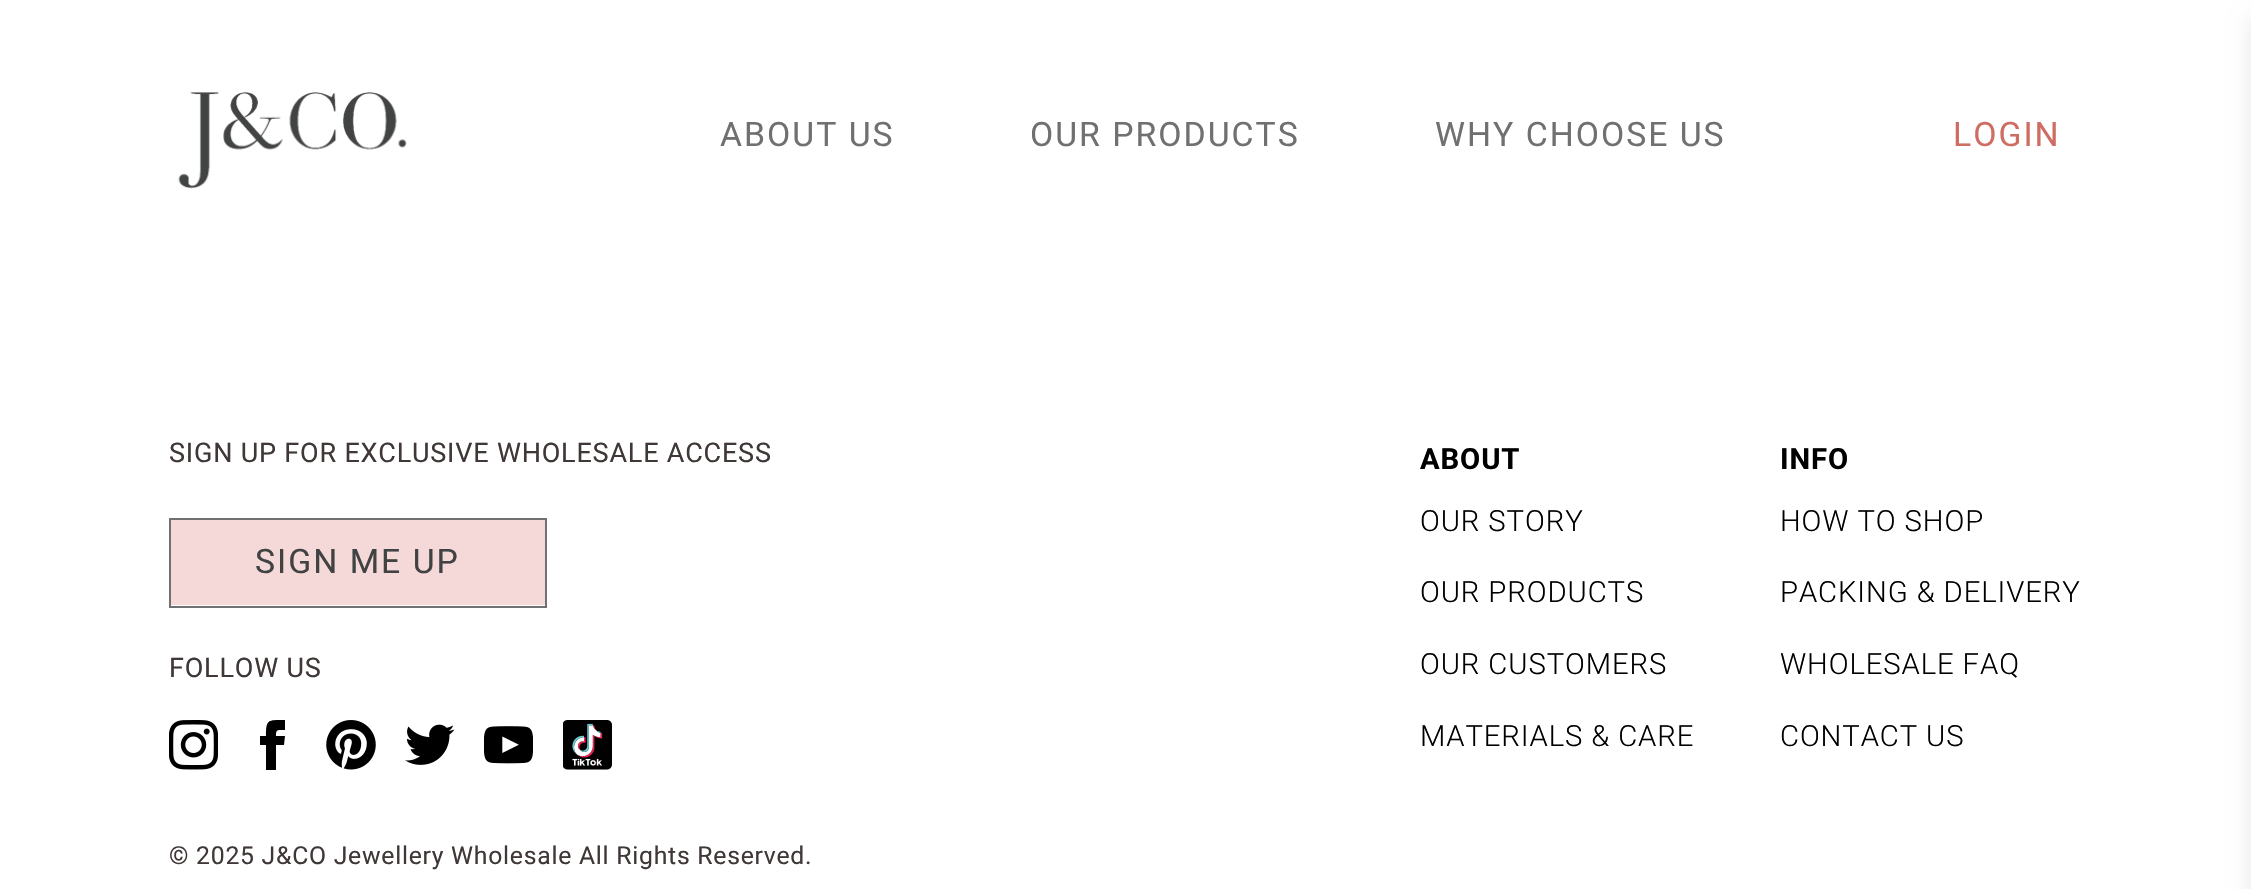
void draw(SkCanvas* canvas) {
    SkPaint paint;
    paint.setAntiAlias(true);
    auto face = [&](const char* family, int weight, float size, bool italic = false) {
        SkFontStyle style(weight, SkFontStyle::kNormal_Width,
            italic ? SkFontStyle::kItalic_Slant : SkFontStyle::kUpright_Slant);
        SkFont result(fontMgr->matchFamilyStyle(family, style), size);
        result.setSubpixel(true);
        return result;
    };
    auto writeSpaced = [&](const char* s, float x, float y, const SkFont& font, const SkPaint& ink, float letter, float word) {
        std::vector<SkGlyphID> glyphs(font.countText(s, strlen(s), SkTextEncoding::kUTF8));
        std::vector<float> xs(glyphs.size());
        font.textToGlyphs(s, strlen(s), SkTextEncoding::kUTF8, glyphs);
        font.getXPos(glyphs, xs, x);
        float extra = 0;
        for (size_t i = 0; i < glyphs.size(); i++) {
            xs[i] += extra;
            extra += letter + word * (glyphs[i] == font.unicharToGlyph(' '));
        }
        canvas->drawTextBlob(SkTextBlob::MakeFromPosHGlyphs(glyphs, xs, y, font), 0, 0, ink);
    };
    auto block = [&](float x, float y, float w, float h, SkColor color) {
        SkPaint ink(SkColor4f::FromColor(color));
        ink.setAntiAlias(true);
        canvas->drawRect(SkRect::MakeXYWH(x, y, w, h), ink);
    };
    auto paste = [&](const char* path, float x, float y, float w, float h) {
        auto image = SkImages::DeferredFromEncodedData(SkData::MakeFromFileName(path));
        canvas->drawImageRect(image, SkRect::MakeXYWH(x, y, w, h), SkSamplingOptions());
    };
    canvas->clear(SK_ColorWHITE);
    paste("pic1.png", 178, 92, 229, 97);
    auto kFont1 = face("Roboto", 400, 33.75f);
    paint.setColor(SkColorSetRGB(112, 112, 112));
    writeSpaced("ABOUT US", 720, 146, kFont1, paint, 2, 0);
    writeSpaced("OUR PRODUCTS", 1030, 146, kFont1, paint, 2, 0);
    writeSpaced("WHY CHOOSE US", 1435, 146, kFont1, paint, 2, 0);
    paint.setColor(SkColorSetRGB(206, 110, 99));
    writeSpaced("LOGIN", 1953, 146, kFont1, paint, 2, 0);
    paint.setColor(SkColorSetARGB(26, 0, 0, 0));
    paint.setMaskFilter(SkMaskFilter::MakeBlur(kNormal_SkBlurStyle, 11));
    canvas->drawRect(SkRect::MakeXYWH(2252, 18, 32, 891), paint);
    paint.setMaskFilter(nullptr);
    auto kFont2 = face("Roboto", 400, 27);
    paint.setColor(SkColorSetRGB(64, 55, 55));
    writeSpaced("SIGN UP FOR EXCLUSIVE WHOLESALE ACCESS", 169, 462, kFont2, paint, 0.8f, 0);
    block(171, 520, 374, 85, SkColorSetRGB(245, 216, 216));
    paint.setStyle(SkPaint::kStroke_Style);
    paint.setStrokeWidth(2);
    paint.setColor(SkColorSetRGB(112, 112, 112));
    canvas->drawRect(SkRect::MakeXYWH(170, 519, 376, 88), paint);
    paint.setStyle(SkPaint::kFill_Style);
    paint.setColor(SkColorSetRGB(65, 67, 67));
    writeSpaced("SIGN ME UP", 255, 573, kFont1, paint, 2, 0);
    paint.setColor(SkColorSetRGB(64, 55, 55));
    writeSpaced("FOLLOW US", 169, 677, kFont2, paint, 0.8f, 0);
    paste("pic2.png", 169, 720, 49, 50);
    paint.setColor(SK_ColorBLACK);
    canvas->drawPath(SkPathBuilder().moveTo(266, 736).lineTo(260, 736).lineTo(260, 745).lineTo(266, 745).lineTo(266, 770).lineTo(276, 770).lineTo(276, 745).lineTo(284, 745).lineTo(285, 736).lineTo(276, 736).cubicTo(276, 729, 277, 730, 285, 730).lineTo(285, 720).cubicTo(268, 720, 266, 719, 266, 736).close().detach(), paint);
    paste("pic3.png", 326, 720, 50, 50);
    paste("pic4.png", 405, 724, 50, 41);
    paste("pic5.png", 484, 726, 49, 38);
    paste("pic6.png", 563, 720, 49, 50);
    auto kFont3 = face("Roboto", 400, 24.75f);
    paint.setColor(SkColorSetRGB(64, 55, 55));
    writeSpaced("© 2025 J&CO Jewellery Wholesale All Rights Reserved.", 169, 864, kFont3, paint, 0.75f, 0);
    auto kFont4 = face("Roboto", 700, 29.25f);
    paint.setColor(SK_ColorBLACK);
    writeSpaced("ABOUT", 1420, 469, kFont4, paint, 0.9f, 0);
    auto kFont5 = face("Roboto", 300, 29.25f);
    writeSpaced("OUR STORY", 1420, 531, kFont5, paint, 0.9f, 0);
    writeSpaced("OUR PRODUCTS", 1420, 602, kFont5, paint, 0.9f, 0);
    writeSpaced("OUR CUSTOMERS", 1420, 674, kFont5, paint, 0.9f, 0);
    writeSpaced("MATERIALS & CARE", 1420, 746, kFont5, paint, 0.9f, 0);
    writeSpaced("INFO", 1780, 469, kFont4, paint, 0.9f, 0);
    writeSpaced("HOW TO SHOP", 1780, 531, kFont5, paint, 0.9f, 0);
    writeSpaced("PACKING & DELIVERY", 1780, 602, kFont5, paint, 0.9f, 0);
    writeSpaced("WHOLESALE FAQ", 1780, 674, kFont5, paint, 0.9f, 0);
    writeSpaced("CONTACT US", 1780, 746, kFont5, paint, 0.9f, 0);
}
